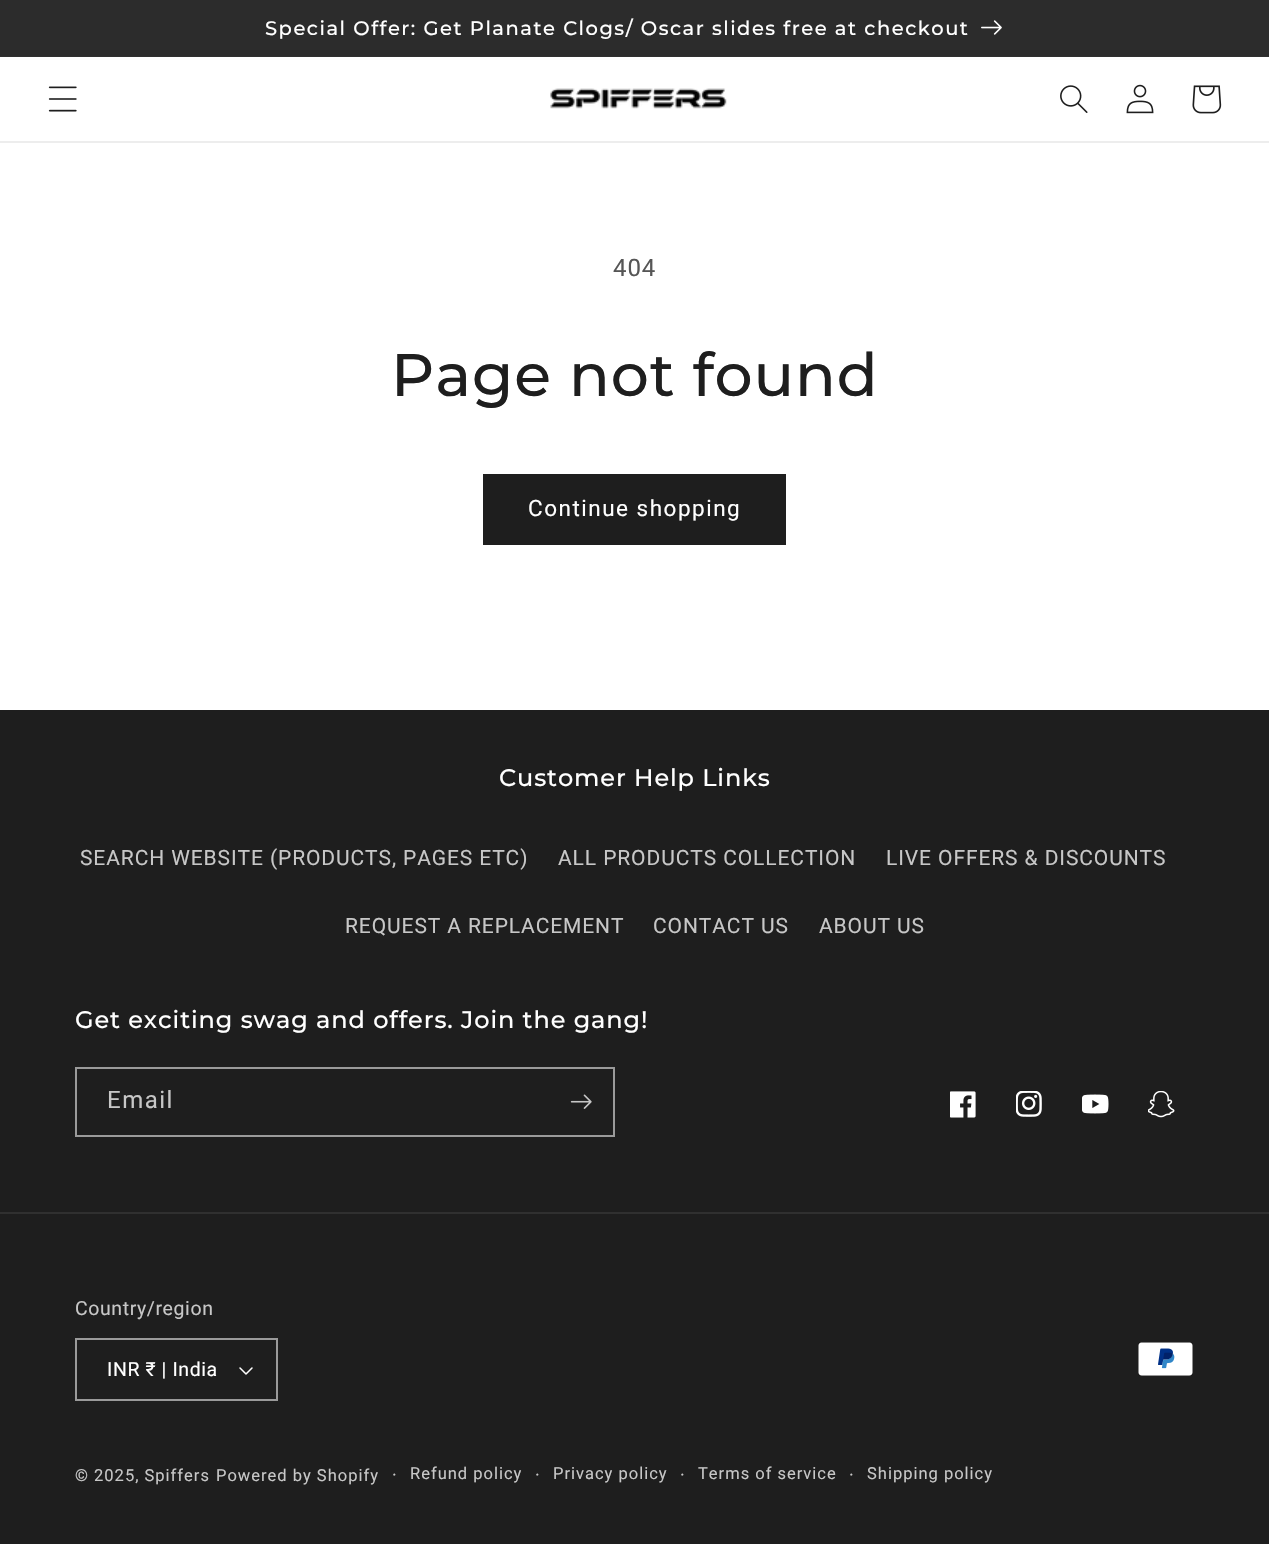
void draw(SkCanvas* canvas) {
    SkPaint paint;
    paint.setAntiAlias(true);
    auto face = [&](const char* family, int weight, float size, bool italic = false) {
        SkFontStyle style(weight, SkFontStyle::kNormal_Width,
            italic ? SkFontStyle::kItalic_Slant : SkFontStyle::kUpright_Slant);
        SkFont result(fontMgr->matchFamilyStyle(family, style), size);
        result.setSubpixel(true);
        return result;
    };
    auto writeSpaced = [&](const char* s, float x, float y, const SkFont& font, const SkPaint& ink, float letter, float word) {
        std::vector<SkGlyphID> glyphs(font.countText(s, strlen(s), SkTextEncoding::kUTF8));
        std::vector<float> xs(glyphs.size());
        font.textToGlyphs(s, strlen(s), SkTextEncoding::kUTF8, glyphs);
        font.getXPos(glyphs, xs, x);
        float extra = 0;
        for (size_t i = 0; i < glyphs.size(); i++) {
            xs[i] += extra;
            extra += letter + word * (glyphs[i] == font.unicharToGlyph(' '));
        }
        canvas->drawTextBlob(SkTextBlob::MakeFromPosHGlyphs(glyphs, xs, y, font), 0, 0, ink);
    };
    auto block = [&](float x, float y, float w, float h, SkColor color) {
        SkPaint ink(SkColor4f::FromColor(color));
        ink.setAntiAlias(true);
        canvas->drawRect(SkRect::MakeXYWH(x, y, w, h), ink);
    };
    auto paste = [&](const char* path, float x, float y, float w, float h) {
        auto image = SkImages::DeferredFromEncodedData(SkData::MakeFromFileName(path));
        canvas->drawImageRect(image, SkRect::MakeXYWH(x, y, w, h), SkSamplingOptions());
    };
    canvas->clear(SK_ColorWHITE);
    block(0, 56, 1269, 1, SkColorSetRGB(48, 48, 48));
    block(0, 0, 1269, 56, SkColorSetRGB(44, 44, 44));
    auto kFont1 = face("Montserrat", 500, 19.5f);
    paint.setColor(SK_ColorWHITE);
    writeSpaced("Special Offer: Get Planate Clogs/ Oscar slides free at checkout", 265, 35, kFont1, paint, 1.5f, 0);
    paste("pic1.png", 981, 20, 21, 15);
    block(0, 141, 1269, 2, SkColorSetRGB(237, 237, 237));
    paste("pic2.png", 48, 86, 29, 26);
    paste("pic3.png", 550, 88, 177, 21);
    paste("pic4.png", 1060, 85, 28, 28);
    paste("pic5.png", 1126, 84, 28, 30);
    paste("pic6.png", 1192, 85, 30, 29);
    auto kFont2 = face("Roboto", 400, 24);
    paint.setColor(SkColorSetRGB(86, 86, 86));
    writeSpaced("404", 613, 276, kFont2, paint, 0.9f, 0);
    auto kFont3 = face("Montserrat", 500, 60);
    paint.setColor(SkColorSetRGB(30, 30, 30));
    writeSpaced("Page not found", 391, 396, kFont3, paint, 0.9f, 0);
    block(483, 474, 303, 71, SkColorSetRGB(30, 30, 30));
    auto kFont4 = face("Roboto", 400, 22.5f);
    paint.setColor(SK_ColorWHITE);
    writeSpaced("Continue shopping", 528, 516, kFont4, paint, 1.5f, 0);
    block(0, 710, 1269, 834, SkColorSetRGB(30, 30, 30));
    auto kFont5 = face("Montserrat", 500, 24);
    writeSpaced("Customer Help Links", 499, 786, kFont5, paint, 0.9f, 0);
    auto kFont6 = face("Roboto", 400, 21);
    paint.setColor(SkColorSetRGB(199, 199, 199));
    writeSpaced("SEARCH WEBSITE (PRODUCTS, PAGES ETC)", 80, 865, kFont6, paint, 0.9f, 0);
    writeSpaced("ALL PRODUCTS COLLECTION", 558, 865, kFont6, paint, 0.9f, 0);
    writeSpaced("LIVE OFFERS & DISCOUNTS", 886, 865, kFont6, paint, 0.9f, 0);
    writeSpaced("REQUEST A REPLACEMENT", 345, 933, kFont6, paint, 0.9f, 0);
    writeSpaced("CONTACT US", 653, 933, kFont6, paint, 0.9f, 0);
    writeSpaced("ABOUT US", 819, 933, kFont6, paint, 0.9f, 0);
    paint.setColor(SK_ColorWHITE);
    writeSpaced("Get exciting swag and offers. Join the gang!", 75, 1028, kFont5, paint, 0.9f, 0);
    paint.setStyle(SkPaint::kStroke_Style);
    paint.setStrokeWidth(2);
    paint.setColor(SkColorSetRGB(154, 154, 154));
    canvas->drawRect(SkRect::MakeXYWH(76, 1068, 538, 68), paint);
    paint.setStyle(SkPaint::kFill_Style);
    paint.setColor(SkColorSetRGB(199, 199, 199));
    writeSpaced("Email", 107, 1108, kFont2, paint, 1.5f, 0);
    paste("pic7.png", 570, 1094, 22, 15);
    paste("pic8.png", 950, 1091, 26, 27);
    paste("pic9.png", 1016, 1091, 26, 26);
    paste("pic10.png", 1082, 1094, 27, 20);
    paste("pic11.png", 1148, 1091, 27, 27);
    block(0, 1212, 1269, 2, SkColorSetRGB(48, 48, 48));
    auto kFont7 = face("Roboto", 400, 19.5f);
    writeSpaced("Country/region", 75, 1315, kFont7, paint, 0.6f, 0);
    paste("pic12.png", 239, 1367, 14, 8);
    paint.setStyle(SkPaint::kStroke_Style);
    paint.setColor(SkColorSetRGB(154, 154, 154));
    canvas->drawRect(SkRect::MakeXYWH(76, 1339, 201, 61), paint);
    paint.setStyle(SkPaint::kFill_Style);
    paint.setColor(SK_ColorWHITE);
    writeSpaced("INR ₹ | India", 107, 1376, kFont7, paint, 0.6f, 0);
    paste("pic13.png", 1138, 1342, 55, 34);
    auto kFont8 = face("Roboto", 400, 16.5f);
    paint.setColor(SkColorSetRGB(199, 199, 199));
    writeSpaced("© 2025, Spiffers", 75, 1481, kFont8, paint, 1, 0);
    writeSpaced("Powered by Shopify", 216, 1481, kFont8, paint, 1, 0);
    auto kFont9 = face("Roboto", 400, 18);
    writeSpaced("·", 392, 1481, kFont9, paint, 1, 0);
    writeSpaced("Refund policy", 410, 1479, kFont8, paint, 1, 0);
    writeSpaced("·", 535, 1481, kFont9, paint, 1, 0);
    writeSpaced("Privacy policy", 553, 1479, kFont8, paint, 1, 0);
    writeSpaced("·", 680, 1481, kFont9, paint, 1, 0);
    writeSpaced("Terms of service", 698, 1479, kFont8, paint, 1, 0);
    writeSpaced("·", 849, 1481, kFont9, paint, 1, 0);
    writeSpaced("Shipping policy", 867, 1479, kFont8, paint, 1, 0);
}
